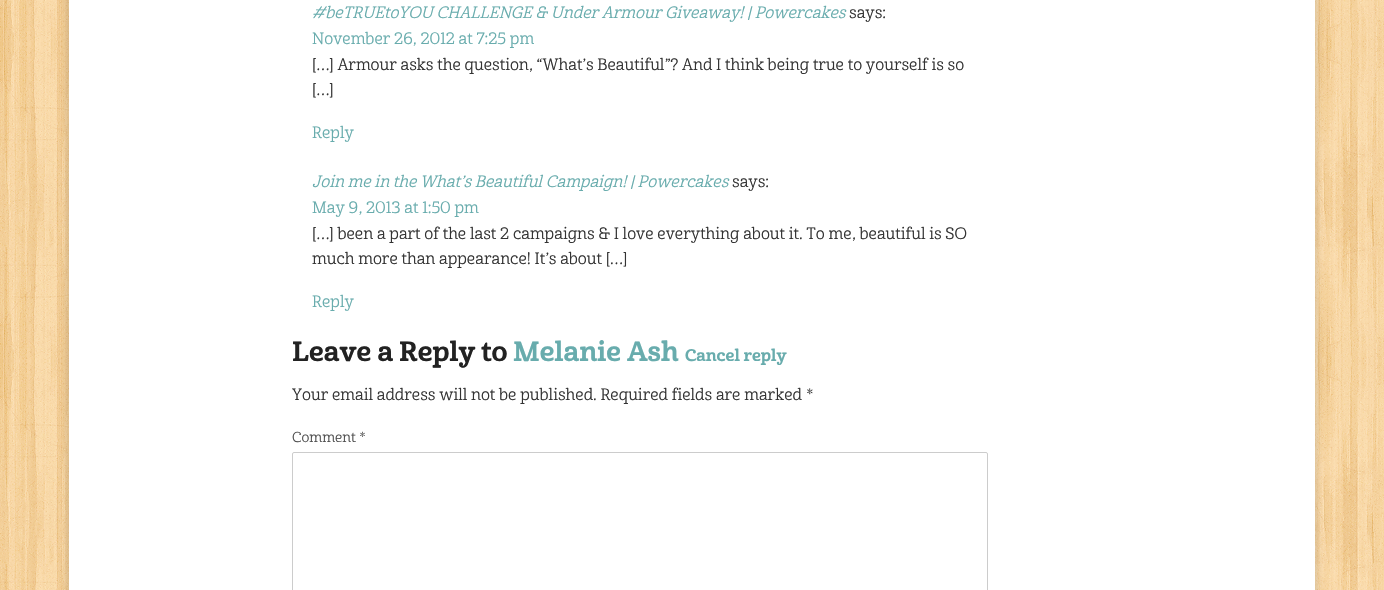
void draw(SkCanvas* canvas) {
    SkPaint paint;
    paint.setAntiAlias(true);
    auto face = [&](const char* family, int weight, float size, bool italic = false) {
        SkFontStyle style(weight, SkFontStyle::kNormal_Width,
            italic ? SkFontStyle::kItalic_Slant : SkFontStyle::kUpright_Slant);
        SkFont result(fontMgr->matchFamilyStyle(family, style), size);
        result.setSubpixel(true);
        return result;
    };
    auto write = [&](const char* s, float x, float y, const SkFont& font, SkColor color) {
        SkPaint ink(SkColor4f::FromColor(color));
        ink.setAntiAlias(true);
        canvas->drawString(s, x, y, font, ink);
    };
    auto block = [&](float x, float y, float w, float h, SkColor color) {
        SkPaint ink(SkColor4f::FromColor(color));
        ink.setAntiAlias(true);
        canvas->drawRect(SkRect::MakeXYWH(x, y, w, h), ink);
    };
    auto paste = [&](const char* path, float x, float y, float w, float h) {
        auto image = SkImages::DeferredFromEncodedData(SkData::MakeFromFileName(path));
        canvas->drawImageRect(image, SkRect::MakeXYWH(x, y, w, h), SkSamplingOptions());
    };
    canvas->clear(SK_ColorWHITE);
    paste("pic1.png", 0, 0, 1384, 590);
    paint.setColor(SkColorSetARGB(26, 0, 0, 0));
    paint.setMaskFilter(SkMaskFilter::MakeBlur(kNormal_SkBlurStyle, 2.5f));
    canvas->drawRect(SkRect::MakeXYWH(66, -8, 1252, 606), paint);
    paint.setMaskFilter(nullptr);
    block(69, 0, 1246, 590, SK_ColorWHITE);
    auto kFont1 = face("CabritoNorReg", 400, 16, true);
    write("#beTRUEtoYOU CHALLENGE & Under Armour Giveaway! | Powercakes", 312, 18, kFont1, SkColorSetRGB(104, 172, 173));
    auto kFont2 = face("CabritoNorReg", 400, 16);
    write("says:", 849, 18, kFont2, SkColorSetRGB(51, 51, 51));
    write("November 26, 2012 at 7:25 pm", 312, 44, kFont2, SkColorSetRGB(104, 172, 173));
    write("[…] Armour asks the question, “What’s Beautiful”? And I think being true to yourself is so", 312, 70, kFont2, SkColorSetRGB(51, 51, 51));
    write("[…]", 312, 95, kFont2, SkColorSetRGB(51, 51, 51));
    write("Reply", 312, 138, kFont2, SkColorSetRGB(104, 172, 173));
    write("Join me in the What’s Beautiful Campaign! | Powercakes", 312, 187, kFont1, SkColorSetRGB(104, 172, 173));
    write("says:", 732, 187, kFont2, SkColorSetRGB(51, 51, 51));
    write("May 9, 2013 at 1:50 pm", 312, 213, kFont2, SkColorSetRGB(104, 172, 173));
    write("[…] been a part of the last 2 campaigns & I love everything about it. To me, beautiful is SO", 312, 239, kFont2, SkColorSetRGB(51, 51, 51));
    write("much more than appearance! It’s about […]", 312, 264, kFont2, SkColorSetRGB(51, 51, 51));
    write("Reply", 312, 307, kFont2, SkColorSetRGB(104, 172, 173));
    auto kFont3 = face("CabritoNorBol", 400, 27);
    write("Leave a Reply to", 292, 361, kFont3, SkColorSetRGB(34, 34, 34));
    write("Melanie Ash", 513, 361, kFont3, SkColorSetRGB(104, 172, 173));
    auto kFont4 = face("CabritoNorBol", 400, 16.25f);
    write("Cancel reply", 685, 361, kFont4, SkColorSetRGB(104, 172, 173));
    write("Your email address will not be published. Required fields are marked *", 292, 400, kFont2, SkColorSetRGB(51, 51, 51));
    auto kFont5 = face("CabritoNorReg", 400, 14);
    write("Comment *", 292, 442, kFont5, SkColorSetRGB(77, 77, 77));
    paint.setStyle(SkPaint::kStroke_Style);
    paint.setStrokeWidth(1);
    paint.setColor(SkColorSetRGB(204, 204, 204));
    canvas->drawRoundRect(SkRect::MakeXYWH(292.5f, 452.5f, 695, 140), 1.5f, 1.5f, paint);
}
